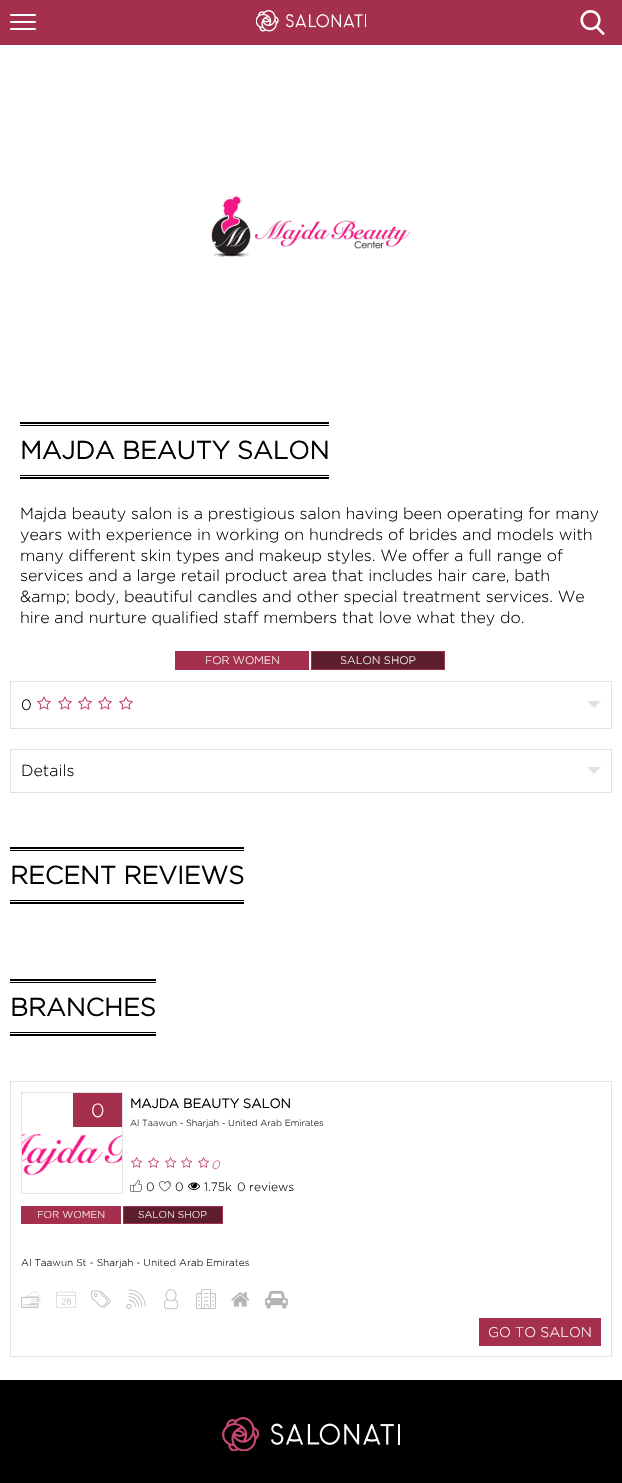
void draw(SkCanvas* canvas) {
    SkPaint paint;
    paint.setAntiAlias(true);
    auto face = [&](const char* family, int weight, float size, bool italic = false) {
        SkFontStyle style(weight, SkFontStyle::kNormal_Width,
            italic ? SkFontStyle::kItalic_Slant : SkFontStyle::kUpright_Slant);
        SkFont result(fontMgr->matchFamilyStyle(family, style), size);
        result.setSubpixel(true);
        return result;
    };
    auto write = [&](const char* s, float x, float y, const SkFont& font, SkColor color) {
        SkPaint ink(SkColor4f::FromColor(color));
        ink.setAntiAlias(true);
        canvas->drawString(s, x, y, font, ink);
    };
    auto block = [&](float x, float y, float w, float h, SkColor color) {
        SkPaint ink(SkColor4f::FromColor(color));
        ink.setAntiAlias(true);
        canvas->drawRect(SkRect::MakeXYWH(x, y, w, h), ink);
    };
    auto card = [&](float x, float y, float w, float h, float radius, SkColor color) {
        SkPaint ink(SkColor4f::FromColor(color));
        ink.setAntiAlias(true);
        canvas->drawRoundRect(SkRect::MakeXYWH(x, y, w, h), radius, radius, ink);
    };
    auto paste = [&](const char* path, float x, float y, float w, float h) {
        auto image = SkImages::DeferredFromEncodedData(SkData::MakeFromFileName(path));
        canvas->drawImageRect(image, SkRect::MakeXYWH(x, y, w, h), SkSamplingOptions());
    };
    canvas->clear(SK_ColorWHITE);
    block(0, 0, 622, 45, SkColorSetRGB(165, 48, 77));
    card(10, 21, 26, 2, 1, SK_ColorWHITE);
    card(10, 14, 26, 2, 1, SK_ColorWHITE);
    card(10, 28, 26, 2, 1, SK_ColorWHITE);
    paste("pic1.png", 256, 10, 110, 22);
    paste("pic2.png", 580, 10, 25, 25);
    paste("pic3.png", 211, 195, 199, 62);
    block(20, 422, 309, 2, SK_ColorBLACK);
    block(20, 477, 309, 2, SK_ColorBLACK);
    block(20, 425, 309, 1, SK_ColorBLACK);
    auto kFont1 = face("Gotham", 700, 25);
    write("MAJDA BEAUTY SALON", 20, 459, kFont1, SK_ColorBLACK);
    block(20, 475, 309, 1, SK_ColorBLACK);
    auto kFont2 = face("Gotham", 300, 16);
    write("Majda beauty salon is a prestigious salon having been operating for many", 20, 519, kFont2, SK_ColorBLACK);
    write("years with experience in working on hundreds of brides and models with", 20, 540, kFont2, SK_ColorBLACK);
    write("many different skin types and makeup styles. We offer a full range of", 20, 561, kFont2, SK_ColorBLACK);
    write("services and a large retail product area that includes hair care, bath", 20, 581, kFont2, SK_ColorBLACK);
    write("&amp; body, beautiful candles and other special treatment services. We", 20, 602, kFont2, SK_ColorBLACK);
    write("hire and nurture qualified staff members that love what they do.", 20, 623, kFont2, SK_ColorBLACK);
    block(175, 651, 134, 19, SkColorSetRGB(165, 48, 77));
    auto kFont3 = face("Gotham", 300, 11);
    write("FOR WOMEN", 205, 664, kFont3, SK_ColorWHITE);
    paint.setColor(SkColorSetRGB(92, 30, 45));
    canvas->drawRect(SkRect::MakeXYWH(311.5f, 651.5f, 133, 18), paint);
    paint.setStyle(SkPaint::kStroke_Style);
    paint.setStrokeWidth(1);
    paint.setColor(SkColorSetRGB(165, 48, 77));
    canvas->drawRect(SkRect::MakeXYWH(311.5f, 651.5f, 133, 18), paint);
    write("SALON SHOP", 340, 664, kFont3, SK_ColorWHITE);
    paint.setColor(SkColorSetRGB(226, 226, 226));
    canvas->drawRect(SkRect::MakeXYWH(10.5f, 681.5f, 601, 47), paint);
    auto kFont4 = face("Gotham", 300, 15);
    write("0", 21, 710, kFont4, SK_ColorBLACK);
    paste("pic4.png", 37, 696, 14, 14);
    paste("pic4.png", 58, 696, 14, 14);
    paste("pic4.png", 78, 696, 14, 14);
    paste("pic4.png", 98, 696, 14, 14);
    paste("pic4.png", 119, 696, 14, 14);
    paint.setStyle(SkPaint::kFill_Style);
    canvas->drawPath(SkPathBuilder().moveTo(587, 701).lineTo(601, 701).lineTo(594, 708).close().detach(), paint);
    paint.setStyle(SkPaint::kStroke_Style);
    canvas->drawRect(SkRect::MakeXYWH(10.5f, 749.5f, 601, 43), paint);
    write("Details", 21, 776, kFont2, SK_ColorBLACK);
    paint.setStyle(SkPaint::kFill_Style);
    canvas->drawPath(SkPathBuilder().moveTo(587, 767).lineTo(601, 767).lineTo(594, 774).close().detach(), paint);
    block(10, 847, 234, 2, SK_ColorBLACK);
    block(10, 902, 234, 2, SK_ColorBLACK);
    block(10, 850, 234, 1, SK_ColorBLACK);
    write("RECENT REVIEWS", 10, 884, kFont1, SK_ColorBLACK);
    block(10, 900, 234, 1, SK_ColorBLACK);
    block(10, 979, 146, 2, SK_ColorBLACK);
    block(10, 1034, 146, 2, SK_ColorBLACK);
    block(10, 982, 146, 1, SK_ColorBLACK);
    write("BRANCHES", 10, 1016, kFont1, SK_ColorBLACK);
    block(10, 1032, 146, 1, SK_ColorBLACK);
    paint.setStyle(SkPaint::kStroke_Style);
    canvas->drawRect(SkRect::MakeXYWH(10.5f, 1081.5f, 601, 275), paint);
    auto kFont5 = face("Gotham", 700, 13);
    write("MAJDA BEAUTY SALON", 130, 1108, kFont5, SK_ColorBLACK);
    auto kFont6 = face("Gotham", 300, 9);
    write("Al Taawun - Sharjah - United Arab Emirates", 130, 1126, kFont6, SK_ColorBLACK);
    paste("pic5.png", 131, 1157, 12, 11);
    paste("pic5.png", 148, 1157, 12, 11);
    paste("pic5.png", 165, 1157, 12, 11);
    paste("pic5.png", 181, 1157, 12, 11);
    paste("pic5.png", 198, 1157, 12, 11);
    auto kFont7 = face("Gotham", 300, 12, true);
    write("0", 211, 1169, kFont7, SkColorSetRGB(197, 72, 111));
    paste("pic6.png", 130, 1180, 12, 12);
    auto kFont8 = face("Gotham", 300, 12);
    write("0", 146, 1191, kFont8, SK_ColorBLACK);
    paste("pic7.png", 159, 1181, 12, 11);
    write("0", 175, 1191, kFont8, SK_ColorBLACK);
    paste("pic8.png", 188, 1182, 12, 9);
    write("1.75k", 204, 1191, kFont8, SK_ColorBLACK);
    write("0 reviews", 237, 1191, kFont8, SK_ColorBLACK);
    block(21, 1206, 100, 18, SkColorSetRGB(165, 48, 77));
    auto kFont9 = face("Gotham", 300, 10);
    write("FOR WOMEN", 37, 1218, kFont9, SK_ColorWHITE);
    paint.setStyle(SkPaint::kFill_Style);
    paint.setColor(SkColorSetRGB(92, 30, 45));
    canvas->drawRect(SkRect::MakeXYWH(123.5f, 1206.5f, 99, 17), paint);
    paint.setStyle(SkPaint::kStroke_Style);
    paint.setColor(SkColorSetRGB(165, 48, 77));
    canvas->drawRect(SkRect::MakeXYWH(123.5f, 1206.5f, 99, 17), paint);
    write("SALON SHOP", 138, 1218, kFont9, SK_ColorWHITE);
    write("Al Taawun St - Sharjah - United Arab Emirates", 21, 1266, kFont9, SK_ColorBLACK);
    paste("pic9.png", 21, 1290, 20, 19);
    paste("pic10.png", 56, 1290, 20, 18);
    paste("pic11.png", 91, 1290, 20, 18);
    paste("pic12.png", 126, 1289, 20, 20);
    paste("pic13.png", 164, 1289, 14, 21);
    paste("pic14.png", 196, 1289, 20, 21);
    paste("pic15.png", 231, 1292, 19, 15);
    paste("pic16.png", 265, 1290, 23, 19);
    block(479, 1318, 122, 28, SkColorSetRGB(165, 48, 77));
    auto kFont10 = face("Gotham", 300, 14);
    write("GO TO SALON", 488, 1337, kFont10, SK_ColorWHITE);
    paste("pic17.png", 22, 1133, 100, 43);
    paint.setColor(SkColorSetRGB(226, 226, 226));
    canvas->drawRect(SkRect::MakeXYWH(21.5f, 1092.5f, 101, 101), paint);
    block(73, 1093, 49, 34, SkColorSetRGB(165, 48, 77));
    auto kFont11 = face("Gotham", 300, 19);
    write("0", 91, 1117, kFont11, SK_ColorWHITE);
    block(0, 1380, 622, 103, SK_ColorBLACK);
    paste("pic18.png", 222, 1417, 178, 34);
}
